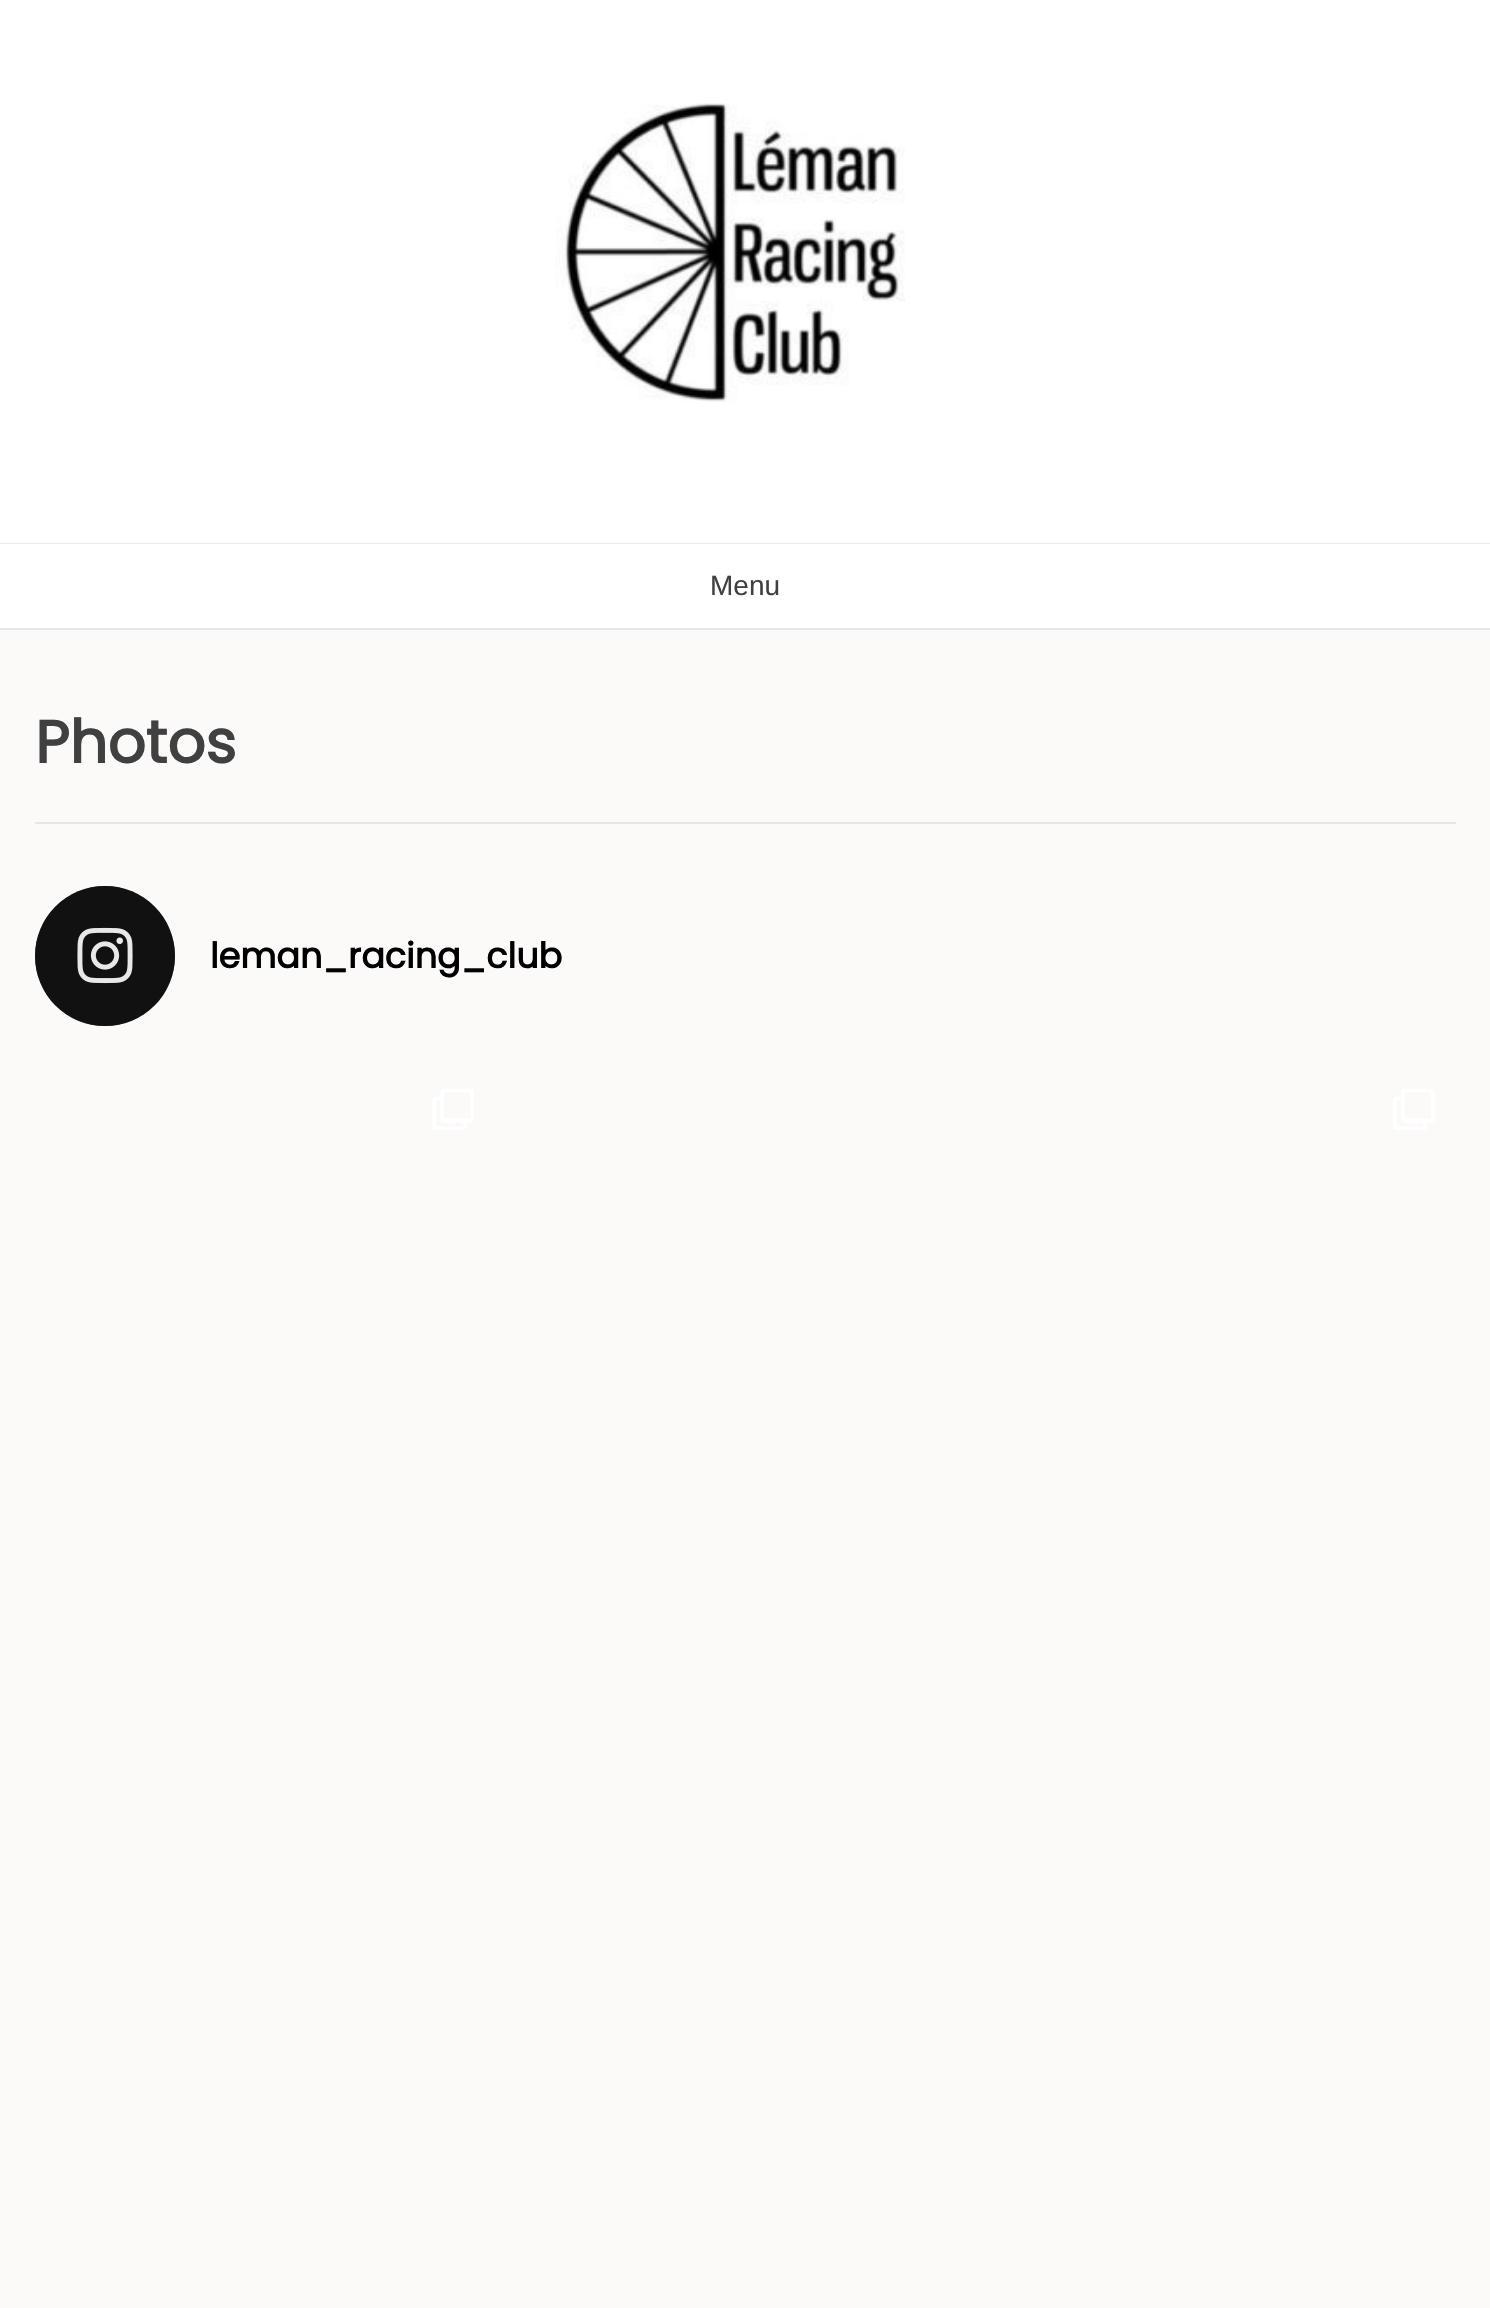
void draw(SkCanvas* canvas) {
    SkPaint paint;
    paint.setAntiAlias(true);
    auto face = [&](const char* family, int weight, float size, bool italic = false) {
        SkFontStyle style(weight, SkFontStyle::kNormal_Width,
            italic ? SkFontStyle::kItalic_Slant : SkFontStyle::kUpright_Slant);
        SkFont result(fontMgr->matchFamilyStyle(family, style), size);
        result.setSubpixel(true);
        return result;
    };
    auto write = [&](const char* s, float x, float y, const SkFont& font, SkColor color) {
        SkPaint ink(SkColor4f::FromColor(color));
        ink.setAntiAlias(true);
        canvas->drawString(s, x, y, font, ink);
    };
    auto block = [&](float x, float y, float w, float h, SkColor color) {
        SkPaint ink(SkColor4f::FromColor(color));
        ink.setAntiAlias(true);
        canvas->drawRect(SkRect::MakeXYWH(x, y, w, h), ink);
    };
    auto paste = [&](const char* path, float x, float y, float w, float h) {
        auto image = SkImages::DeferredFromEncodedData(SkData::MakeFromFileName(path));
        canvas->drawImageRect(image, SkRect::MakeXYWH(x, y, w, h), SkSamplingOptions());
    };
    canvas->clear(SkColorSetRGB(252, 250, 249));
    block(0, 628, 1490, 2, SkColorSetRGB(232, 230, 229));
    block(0, 0, 1490, 628, SK_ColorWHITE);
    paste("pic1.png", 555, 103, 350, 300);
    block(0, 543, 1490, 1, SkColorSetRGB(235, 235, 235));
    auto kFont1 = face("Liberation Sans", 400, 28);
    write("Menu", 710, 595, kFont1, SkColorSetRGB(64, 64, 64));
    block(35, 822, 1421, 2, SkColorSetRGB(232, 230, 229));
    auto kFont2 = face("Poppins", 700, 59.5f);
    write("Photos", 35, 763, kFont2, SkColorSetRGB(64, 64, 64));
    paint.setColor(SkColorSetRGB(51, 51, 51));
    canvas->drawCircle(105, 956, 70, paint);
    paint.setColor(SkColorSetARGB(173, 0, 0, 0));
    canvas->drawCircle(105, 956, 70, paint);
    paste("pic2.png", 77, 927, 56, 57);
    auto kFont3 = face("Poppins", 700, 35);
    write("leman_racing_club", 210, 968, kFont3, SK_ColorBLACK);
    paste("pic3.png", 432, 1089, 42, 41);
    paste("pic4.png", 1393, 1089, 42, 41);
}
